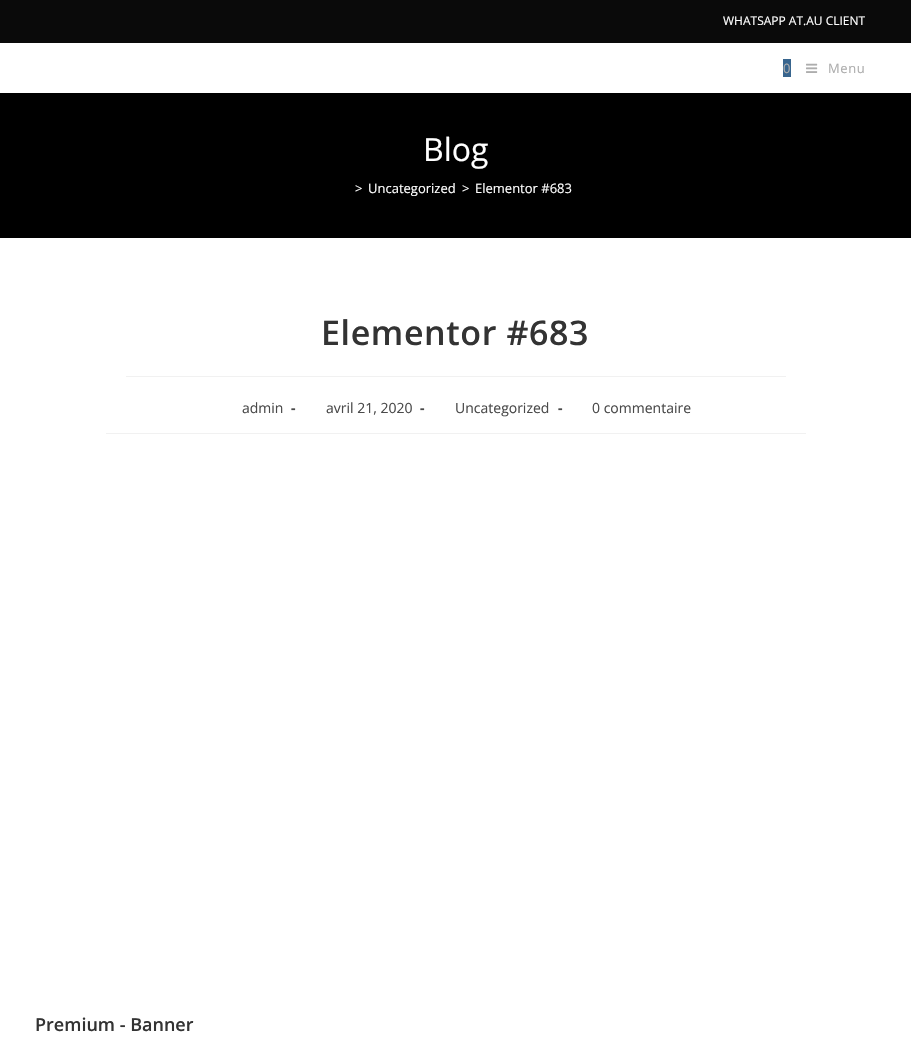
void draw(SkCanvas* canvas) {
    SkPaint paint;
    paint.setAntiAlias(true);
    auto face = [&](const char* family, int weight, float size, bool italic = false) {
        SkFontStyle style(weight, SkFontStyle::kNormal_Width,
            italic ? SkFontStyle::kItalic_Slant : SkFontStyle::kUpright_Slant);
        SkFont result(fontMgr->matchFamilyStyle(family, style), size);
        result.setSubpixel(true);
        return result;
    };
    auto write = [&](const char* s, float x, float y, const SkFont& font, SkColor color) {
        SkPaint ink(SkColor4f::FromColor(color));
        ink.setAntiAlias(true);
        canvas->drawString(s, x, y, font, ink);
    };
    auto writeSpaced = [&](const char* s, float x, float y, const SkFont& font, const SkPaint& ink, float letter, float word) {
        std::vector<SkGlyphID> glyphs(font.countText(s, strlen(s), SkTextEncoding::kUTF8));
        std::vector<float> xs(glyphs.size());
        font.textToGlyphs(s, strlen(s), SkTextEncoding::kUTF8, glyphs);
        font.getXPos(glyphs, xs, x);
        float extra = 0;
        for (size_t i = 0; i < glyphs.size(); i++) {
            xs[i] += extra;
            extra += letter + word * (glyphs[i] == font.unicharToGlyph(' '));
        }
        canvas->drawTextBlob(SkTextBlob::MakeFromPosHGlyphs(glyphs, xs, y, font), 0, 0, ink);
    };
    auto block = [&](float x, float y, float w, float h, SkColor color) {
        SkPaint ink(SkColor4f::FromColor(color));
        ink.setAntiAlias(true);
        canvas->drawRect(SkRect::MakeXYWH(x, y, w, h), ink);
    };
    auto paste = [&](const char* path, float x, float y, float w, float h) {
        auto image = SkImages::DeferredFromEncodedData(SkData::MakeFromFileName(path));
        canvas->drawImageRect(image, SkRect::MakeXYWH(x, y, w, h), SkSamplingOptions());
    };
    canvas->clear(SK_ColorWHITE);
    block(0, 0, 911, 43, SkColorSetRGB(10, 10, 10));
    auto kFont1 = face("Open Sans", 400, 12);
    write("WHATSAPP AT.AU CLIENT", 723, 25, kFont1, SK_ColorWHITE);
    block(783, 59, 8, 18, SkColorSetRGB(56, 101, 142));
    auto kFont2 = face("Open Sans", 400, 13);
    paint.setColor(SkColorSetRGB(173, 173, 173));
    writeSpaced("0", 783, 73, kFont2, paint, 0.6f, 0);
    paste("pic1.png", 806, 63, 12, 10);
    writeSpaced("Menu", 828, 73, kFont2, paint, 0.6f, 0);
    block(0, 93, 911, 145, SK_ColorBLACK);
    auto kFont3 = face("Open Sans", 400, 32);
    write("Blog", 423, 161, kFont3, SK_ColorWHITE);
    write(">", 355, 193, kFont2, SK_ColorWHITE);
    write("Uncategorized", 368, 193, kFont2, SK_ColorWHITE);
    write(">", 462, 193, kFont2, SK_ColorWHITE);
    write("Elementor #683", 475, 193, kFont2, SK_ColorWHITE);
    block(126, 376, 660, 1, SkColorSetRGB(241, 241, 241));
    auto kFont4 = face("Open Sans", 600, 34);
    paint.setColor(SkColorSetRGB(51, 51, 51));
    writeSpaced("Elementor #683", 321, 345, kFont4, paint, 0.6f, 0);
    block(106, 433, 700, 1, SkColorSetRGB(241, 241, 241));
    auto kFont5 = face("Open Sans", 400, 14);
    write("admin", 242, 413, kFont5, SkColorSetRGB(74, 74, 74));
    auto kFont6 = face("Open Sans", 700, 14);
    write("-", 291, 413, kFont6, SkColorSetRGB(74, 74, 74));
    write("avril 21, 2020", 326, 413, kFont5, SkColorSetRGB(74, 74, 74));
    write("-", 420, 413, kFont6, SkColorSetRGB(74, 74, 74));
    write("Uncategorized", 455, 413, kFont5, SkColorSetRGB(74, 74, 74));
    write("-", 558, 413, kFont6, SkColorSetRGB(74, 74, 74));
    write("0 commentaire", 592, 413, kFont5, SkColorSetRGB(74, 74, 74));
    auto kFont7 = face("Open Sans", 600, 18);
    write("Premium - Banner", 35, 1031, kFont7, SkColorSetRGB(51, 51, 51));
}
